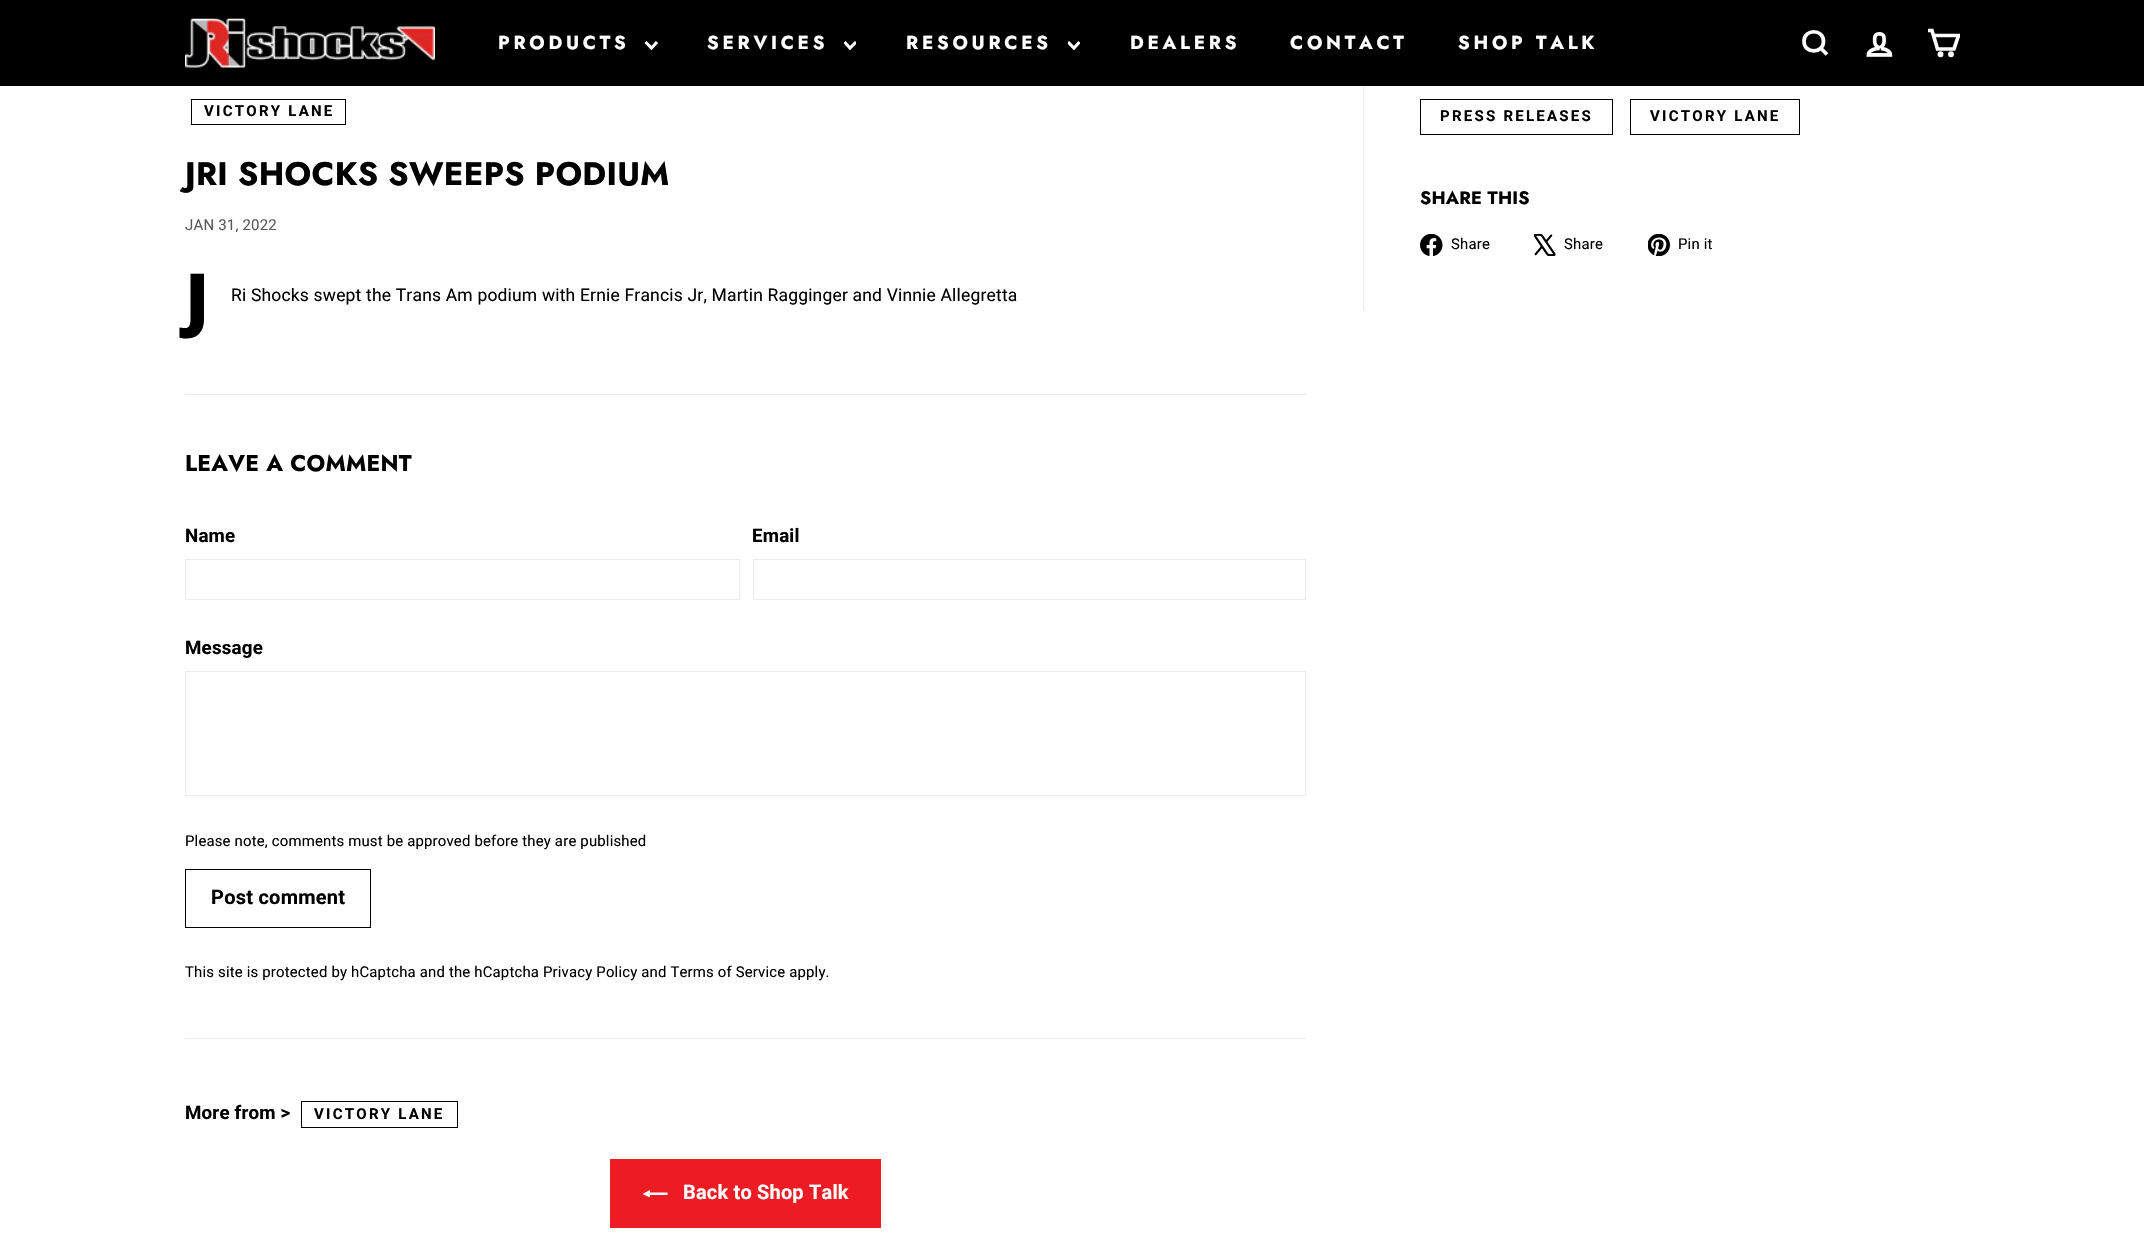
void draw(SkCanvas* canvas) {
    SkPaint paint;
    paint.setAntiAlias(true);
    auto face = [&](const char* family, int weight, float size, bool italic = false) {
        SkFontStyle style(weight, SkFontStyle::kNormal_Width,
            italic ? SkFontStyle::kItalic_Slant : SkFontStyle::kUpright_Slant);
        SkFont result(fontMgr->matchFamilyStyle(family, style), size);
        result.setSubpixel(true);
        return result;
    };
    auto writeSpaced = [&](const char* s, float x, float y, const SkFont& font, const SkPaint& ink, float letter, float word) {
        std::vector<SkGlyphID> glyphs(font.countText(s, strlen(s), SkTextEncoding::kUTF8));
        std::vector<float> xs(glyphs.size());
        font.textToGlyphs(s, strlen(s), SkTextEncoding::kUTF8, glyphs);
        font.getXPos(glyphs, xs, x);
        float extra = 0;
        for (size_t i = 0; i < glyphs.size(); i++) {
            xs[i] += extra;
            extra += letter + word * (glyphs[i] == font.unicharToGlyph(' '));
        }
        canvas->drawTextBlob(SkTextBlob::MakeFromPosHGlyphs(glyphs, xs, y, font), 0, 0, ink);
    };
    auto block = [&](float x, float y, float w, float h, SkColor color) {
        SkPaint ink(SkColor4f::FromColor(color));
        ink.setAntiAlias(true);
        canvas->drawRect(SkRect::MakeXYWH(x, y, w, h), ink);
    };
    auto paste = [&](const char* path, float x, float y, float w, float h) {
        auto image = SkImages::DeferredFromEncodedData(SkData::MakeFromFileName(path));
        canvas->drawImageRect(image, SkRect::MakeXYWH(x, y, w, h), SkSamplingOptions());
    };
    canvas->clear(SK_ColorWHITE);
    block(0, 0, 2144, 86, SK_ColorBLACK);
    paste("pic1.png", 185, 18, 250, 50);
    auto kFont1 = face("Jost", 700, 18.75f);
    paint.setColor(SK_ColorWHITE);
    writeSpaced("PRODUCTS", 498, 49, kFont1, paint, 3.75f, 0);
    paint.setStyle(SkPaint::kStroke_Style);
    paint.setStrokeWidth(3.1f);
    canvas->drawPath(SkPathBuilder().moveTo(645.5f, 42).lineTo(651.5f, 48).lineTo(657, 42).detach(), paint);
    paint.setStyle(SkPaint::kFill_Style);
    writeSpaced("SERVICES", 707, 49, kFont1, paint, 3.75f, 0);
    canvas->save();
    canvas->clipRect(SkRect::MakeXYWH(844, 39, 12, 12));
    paint.setStyle(SkPaint::kStroke_Style);
    canvas->drawPath(SkPathBuilder().moveTo(844.5f, 42).lineTo(850, 48).lineTo(856, 42).detach(), paint);
    canvas->restore();
    paint.setStyle(SkPaint::kFill_Style);
    writeSpaced("RESOURCES", 906, 49, kFont1, paint, 3.75f, 0);
    canvas->save();
    canvas->clipRect(SkRect::MakeXYWH(1068, 39, 12, 12));
    paint.setStyle(SkPaint::kStroke_Style);
    canvas->drawPath(SkPathBuilder().moveTo(1068, 42).lineTo(1074, 48).lineTo(1079.5f, 42).detach(), paint);
    canvas->restore();
    paint.setStyle(SkPaint::kFill_Style);
    writeSpaced("DEALERS", 1130, 49, kFont1, paint, 3.75f, 0);
    writeSpaced("CONTACT", 1290, 49, kFont1, paint, 3.75f, 0);
    writeSpaced("SHOP TALK", 1458, 49, kFont1, paint, 3.75f, 0);
    paint.setStyle(SkPaint::kStroke_Style);
    paint.setStrokeWidth(3.7f);
    canvas->drawPath(SkPathBuilder().moveTo(1823.5f, 41.5f).cubicTo(1823.5f, 54, 1804, 54, 1804, 41.5f).cubicTo(1804, 28.5f, 1823.5f, 28.5f, 1823.5f, 41.5f).moveTo(1827, 54.5f).lineTo(1821, 48.5f).detach(), paint);
    paste("pic2.png", 1866, 32, 27, 25);
    canvas->save();
    canvas->clipRect(SkRect::MakeXYWH(1926, 26, 34, 34));
    canvas->drawPath(SkPathBuilder().moveTo(1933.5f, 35.5f).lineTo(1958.5f, 35.5f).lineTo(1954, 49).lineTo(1937.5f, 49).lineTo(1932, 30.5f).lineTo(1928, 30.5f).detach(), paint);
    canvas->restore();
    paint.setStyle(SkPaint::kFill_Style);
    canvas->drawCircle(1940.5f, 54.2f, 1.1f, paint);
    paint.setStyle(SkPaint::kStroke_Style);
    canvas->drawCircle(1940.5f, 54.2f, 1.1f, paint);
    paint.setStyle(SkPaint::kFill_Style);
    canvas->drawCircle(1951, 54.2f, 1.1f, paint);
    paint.setStyle(SkPaint::kStroke_Style);
    canvas->drawCircle(1951, 54.2f, 1.1f, paint);
    paint.setStrokeWidth(1);
    paint.setColor(SK_ColorBLACK);
    canvas->drawRect(SkRect::MakeXYWH(191.5f, 99.5f, 154, 25), paint);
    auto kFont2 = face("Roboto", 700, 15);
    paint.setStyle(SkPaint::kFill_Style);
    writeSpaced("VICTORY LANE", 204, 116, kFont2, paint, 2.25f, 0);
    auto kFont3 = face("Jost", 700, 32.5f);
    writeSpaced("JRI SHOCKS SWEEPS PODIUM", 185, 185, kFont3, paint, 0.3f, 0);
    auto kFont4 = face("Roboto", 400, 15);
    paint.setColor(SkColorSetRGB(89, 89, 89));
    writeSpaced("JAN 31, 2022", 185, 230, kFont4, paint, 0.18f, 0);
    auto kFont5 = face("Noto Sans", 900, 69);
    paint.setColor(SK_ColorBLACK);
    writeSpaced("J", 185, 323, kFont5, paint, 0.18f, 0);
    auto kFont6 = face("Roboto", 400, 17.5f);
    writeSpaced("Ri Shocks swept the Trans Am podium with Ernie Francis Jr, Martin Ragginger and Vinnie Allegretta", 231, 301, kFont6, paint, 0.18f, 0);
    block(185, 394, 1121, 1, SkColorSetRGB(236, 236, 236));
    auto kFont7 = face("Jost", 700, 22.75f);
    writeSpaced("LEAVE A COMMENT", 185, 471, kFont7, paint, 0.25f, 0);
    auto kFont8 = face("Roboto", 700, 18.75f);
    writeSpaced("Name", 185, 542, kFont8, paint, 0.18f, 0);
    paint.setStyle(SkPaint::kStroke_Style);
    paint.setColor(SkColorSetRGB(236, 236, 236));
    canvas->drawRect(SkRect::MakeXYWH(185.5f, 559.5f, 554, 40), paint);
    paint.setStyle(SkPaint::kFill_Style);
    paint.setColor(SK_ColorBLACK);
    writeSpaced("Email", 752, 542, kFont8, paint, 0.18f, 0);
    paint.setStyle(SkPaint::kStroke_Style);
    paint.setColor(SkColorSetRGB(236, 236, 236));
    canvas->drawRect(SkRect::MakeXYWH(753.5f, 559.5f, 552, 40), paint);
    paint.setStyle(SkPaint::kFill_Style);
    paint.setColor(SK_ColorBLACK);
    writeSpaced("Message", 185, 654, kFont8, paint, 0.18f, 0);
    paint.setStyle(SkPaint::kStroke_Style);
    paint.setColor(SkColorSetRGB(236, 236, 236));
    canvas->drawRect(SkRect::MakeXYWH(185.5f, 671.5f, 1120, 124), paint);
    auto kFont9 = face("Roboto", 400, 14.9f);
    paint.setStyle(SkPaint::kFill_Style);
    paint.setColor(SK_ColorBLACK);
    writeSpaced("Please note, comments must be approved before they are published", 185, 846, kFont9, paint, 0.18f, 0);
    paint.setStyle(SkPaint::kStroke_Style);
    canvas->drawRect(SkRect::MakeXYWH(185.5f, 869.5f, 185, 58), paint);
    auto kFont10 = face("Roboto", 700, 20);
    paint.setStyle(SkPaint::kFill_Style);
    writeSpaced("Post comment", 211, 904, kFont10, paint, 0.25f, 0);
    writeSpaced("This site is protected by hCaptcha and the hCaptcha Privacy Policy and Terms of Service apply.", 185, 977, kFont9, paint, 0.18f, 0);
    block(185, 1038, 1121, 1, SkColorSetRGB(236, 236, 236));
    writeSpaced("More from >", 185, 1119, kFont8, paint, 0.18f, 0);
    paint.setStyle(SkPaint::kStroke_Style);
    canvas->drawRect(SkRect::MakeXYWH(301.5f, 1101.5f, 156, 26), paint);
    paint.setStyle(SkPaint::kFill_Style);
    writeSpaced("VICTORY LANE", 314, 1119, kFont2, paint, 2.25f, 0);
    block(610, 1159, 271, 69, SkColorSetRGB(237, 28, 36));
    paint.setColor(SK_ColorWHITE);
    canvas->drawPath(SkPathBuilder().moveTo(667.5f, 1192.5f).lineTo(667.5f, 1195).lineTo(650, 1195).lineTo(650, 1197.5f).lineTo(642.5f, 1194).lineTo(650, 1190).lineTo(650, 1192.5f).close().detach(), paint);
    writeSpaced("Back to Shop Talk", 683, 1199, kFont10, paint, 0.18f, 0);
    block(1363, 86, 1, 224, SkColorSetRGB(236, 236, 236));
    paint.setStyle(SkPaint::kStroke_Style);
    paint.setColor(SK_ColorBLACK);
    canvas->drawRect(SkRect::MakeXYWH(1420.5f, 99.5f, 192, 35), paint);
    paint.setStyle(SkPaint::kFill_Style);
    writeSpaced("PRESS RELEASES", 1440, 121, kFont2, paint, 2.25f, 0);
    paint.setStyle(SkPaint::kStroke_Style);
    canvas->drawRect(SkRect::MakeXYWH(1630.5f, 99.5f, 169, 35), paint);
    paint.setStyle(SkPaint::kFill_Style);
    writeSpaced("VICTORY LANE", 1650, 121, kFont2, paint, 2.25f, 0);
    auto kFont11 = face("Jost", 700, 18);
    writeSpaced("SHARE THIS", 1420, 204, kFont11, paint, 0.18f, 0);
    paste("pic3.png", 1420, 234, 23, 22);
    writeSpaced("Share", 1451, 249, kFont9, paint, 0.18f, 0);
    paste("pic4.png", 1534, 234, 22, 22);
    writeSpaced("Share", 1564, 249, kFont9, paint, 0.18f, 0);
    paste("pic5.png", 1648, 234, 22, 22);
    writeSpaced("Pin it", 1678, 249, kFont9, paint, 0.18f, 0);
}
